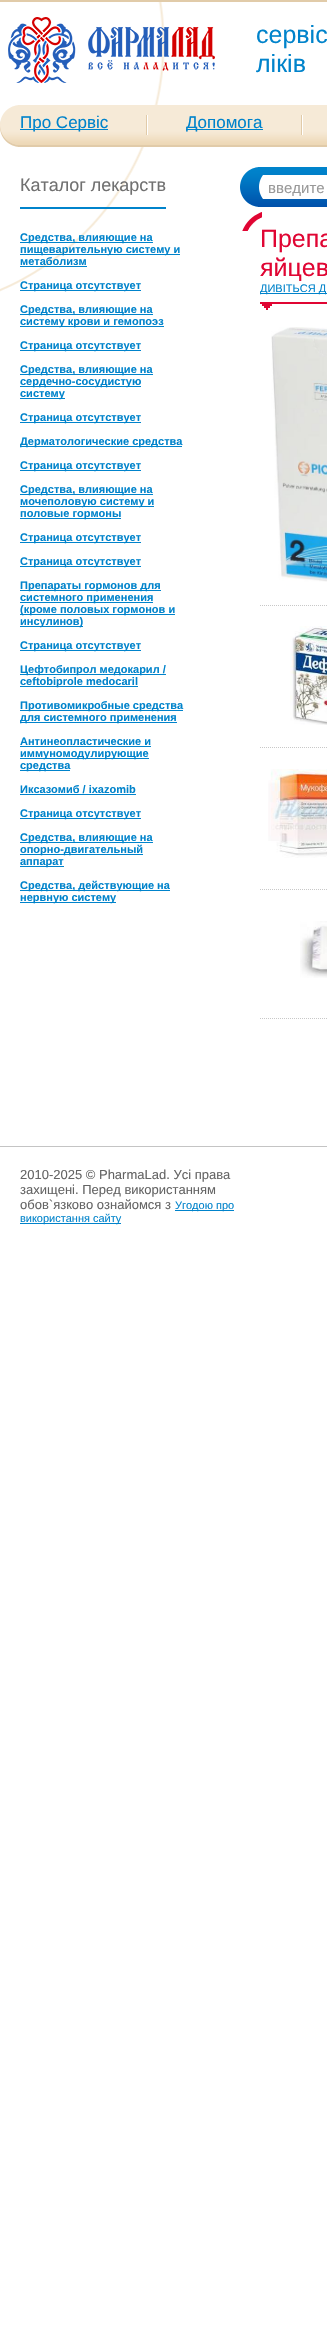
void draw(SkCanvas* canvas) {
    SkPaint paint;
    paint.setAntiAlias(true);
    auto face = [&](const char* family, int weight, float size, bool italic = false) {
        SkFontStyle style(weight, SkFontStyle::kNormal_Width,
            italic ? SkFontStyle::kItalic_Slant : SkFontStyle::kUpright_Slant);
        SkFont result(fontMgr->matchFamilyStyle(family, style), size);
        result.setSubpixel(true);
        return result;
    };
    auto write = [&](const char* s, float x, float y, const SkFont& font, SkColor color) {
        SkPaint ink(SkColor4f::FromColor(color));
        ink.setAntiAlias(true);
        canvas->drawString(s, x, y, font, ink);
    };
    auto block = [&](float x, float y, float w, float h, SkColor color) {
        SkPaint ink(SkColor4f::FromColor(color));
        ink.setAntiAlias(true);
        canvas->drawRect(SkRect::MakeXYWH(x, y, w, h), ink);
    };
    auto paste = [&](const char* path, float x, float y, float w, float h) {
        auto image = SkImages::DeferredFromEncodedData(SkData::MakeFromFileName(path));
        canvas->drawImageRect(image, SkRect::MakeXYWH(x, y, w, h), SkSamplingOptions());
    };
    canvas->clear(SK_ColorWHITE);
    paste("pic1.png", 0, 2, 165, 290);
    block(0, 0, 327, 2, SkColorSetRGB(225, 203, 169));
    paste("pic2.png", 8, 17, 207, 66);
    auto kFont1 = face("Liberation Sans", 400, 25);
    write("сервіс", 256, 43, kFont1, SkColorSetRGB(0, 131, 203));
    write("ліків", 256, 72, kFont1, SkColorSetRGB(0, 131, 203));
    paste("pic3.png", 18, 105, 309, 42);
    paste("pic4.png", 0, 105, 18, 42);
    block(20, 129, 88, 1, SkColorSetRGB(0, 131, 203));
    auto kFont2 = face("Liberation Sans", 400, 17);
    write("Про Сервіс", 20, 128, kFont2, SkColorSetRGB(0, 131, 203));
    paste("pic5.png", 146, 115, 2, 20);
    block(186, 129, 77, 1, SkColorSetRGB(0, 131, 203));
    write("Допомога", 186, 128, kFont2, SkColorSetRGB(0, 131, 203));
    paste("pic5.png", 301, 115, 2, 20);
    block(20, 207, 146, 2, SkColorSetRGB(0, 131, 203));
    auto kFont3 = face("Liberation Sans", 400, 18);
    write("Каталог лекарств", 20, 191, kFont3, SkColorSetRGB(113, 113, 113));
    block(20, 242, 133, 1, SkColorSetRGB(0, 131, 203));
    auto kFont4 = face("Liberation Sans", 700, 11);
    write("Средства, влияющие на", 20, 241, kFont4, SkColorSetRGB(0, 131, 203));
    block(20, 254, 160, 1, SkColorSetRGB(0, 131, 203));
    write("пищеварительную систему и", 20, 253, kFont4, SkColorSetRGB(0, 131, 203));
    write("метаболизм", 20, 265, kFont4, SkColorSetRGB(0, 131, 203));
    block(20, 266, 67, 1, SkColorSetRGB(0, 131, 203));
    block(20, 290, 121, 1, SkColorSetRGB(0, 131, 203));
    write("Страница отсутствует", 20, 289, kFont4, SkColorSetRGB(0, 131, 203));
    block(20, 314, 133, 1, SkColorSetRGB(0, 131, 203));
    write("Средства, влияющие на", 20, 313, kFont4, SkColorSetRGB(0, 131, 203));
    block(20, 326, 144, 1, SkColorSetRGB(0, 131, 203));
    write("систему крови и гемопоэз", 20, 325, kFont4, SkColorSetRGB(0, 131, 203));
    block(20, 350, 121, 1, SkColorSetRGB(0, 131, 203));
    write("Страница отсутствует", 20, 349, kFont4, SkColorSetRGB(0, 131, 203));
    block(20, 374, 133, 1, SkColorSetRGB(0, 131, 203));
    write("Средства, влияющие на", 20, 373, kFont4, SkColorSetRGB(0, 131, 203));
    block(20, 386, 121, 1, SkColorSetRGB(0, 131, 203));
    write("сердечно-сосудистую", 20, 385, kFont4, SkColorSetRGB(0, 131, 203));
    block(20, 398, 45, 1, SkColorSetRGB(0, 131, 203));
    write("систему", 20, 397, kFont4, SkColorSetRGB(0, 131, 203));
    block(20, 422, 121, 1, SkColorSetRGB(0, 131, 203));
    write("Страница отсутствует", 20, 421, kFont4, SkColorSetRGB(0, 131, 203));
    block(20, 446, 162, 1, SkColorSetRGB(0, 131, 203));
    write("Дерматологические средства", 20, 445, kFont4, SkColorSetRGB(0, 131, 203));
    block(20, 470, 121, 1, SkColorSetRGB(0, 131, 203));
    write("Страница отсутствует", 20, 469, kFont4, SkColorSetRGB(0, 131, 203));
    block(20, 494, 133, 1, SkColorSetRGB(0, 131, 203));
    write("Средства, влияющие на", 20, 493, kFont4, SkColorSetRGB(0, 131, 203));
    block(20, 506, 134, 1, SkColorSetRGB(0, 131, 203));
    write("мочеполовую систему и", 20, 505, kFont4, SkColorSetRGB(0, 131, 203));
    block(20, 518, 101, 1, SkColorSetRGB(0, 131, 203));
    write("половые гормоны", 20, 517, kFont4, SkColorSetRGB(0, 131, 203));
    block(20, 542, 121, 1, SkColorSetRGB(0, 131, 203));
    write("Страница отсутствует", 20, 541, kFont4, SkColorSetRGB(0, 131, 203));
    block(20, 566, 121, 1, SkColorSetRGB(0, 131, 203));
    write("Страница отсутствует", 20, 565, kFont4, SkColorSetRGB(0, 131, 203));
    block(20, 590, 141, 1, SkColorSetRGB(0, 131, 203));
    write("Препараты гормонов для", 20, 589, kFont4, SkColorSetRGB(0, 131, 203));
    block(20, 602, 133, 1, SkColorSetRGB(0, 131, 203));
    write("системного применения", 20, 601, kFont4, SkColorSetRGB(0, 131, 203));
    block(20, 614, 155, 1, SkColorSetRGB(0, 131, 203));
    write("(кроме половых гормонов и", 20, 613, kFont4, SkColorSetRGB(0, 131, 203));
    block(20, 626, 63, 1, SkColorSetRGB(0, 131, 203));
    write("инсулинов)", 20, 625, kFont4, SkColorSetRGB(0, 131, 203));
    block(20, 650, 121, 1, SkColorSetRGB(0, 131, 203));
    write("Страница отсутствует", 20, 649, kFont4, SkColorSetRGB(0, 131, 203));
    block(20, 674, 146, 1, SkColorSetRGB(0, 131, 203));
    write("Цефтобипрол медокарил /", 20, 673, kFont4, SkColorSetRGB(0, 131, 203));
    block(20, 686, 118, 1, SkColorSetRGB(0, 131, 203));
    write("ceftobiprole medocaril", 20, 685, kFont4, SkColorSetRGB(0, 131, 203));
    block(20, 710, 163, 1, SkColorSetRGB(0, 131, 203));
    write("Противомикробные средства", 20, 709, kFont4, SkColorSetRGB(0, 131, 203));
    block(20, 722, 157, 1, SkColorSetRGB(0, 131, 203));
    write("для системного применения", 20, 721, kFont4, SkColorSetRGB(0, 131, 203));
    write("Антинеопластические и", 20, 745, kFont4, SkColorSetRGB(0, 131, 203));
    block(20, 746, 131, 1, SkColorSetRGB(0, 131, 203));
    block(20, 758, 129, 1, SkColorSetRGB(0, 131, 203));
    write("иммуномодулирующие", 20, 757, kFont4, SkColorSetRGB(0, 131, 203));
    block(20, 770, 50, 1, SkColorSetRGB(0, 131, 203));
    write("средства", 20, 769, kFont4, SkColorSetRGB(0, 131, 203));
    write("Иксазомиб / ixazomib", 20, 793, kFont4, SkColorSetRGB(0, 131, 203));
    block(20, 794, 116, 1, SkColorSetRGB(0, 131, 203));
    block(20, 818, 121, 1, SkColorSetRGB(0, 131, 203));
    write("Страница отсутствует", 20, 817, kFont4, SkColorSetRGB(0, 131, 203));
    block(20, 842, 133, 1, SkColorSetRGB(0, 131, 203));
    write("Средства, влияющие на", 20, 841, kFont4, SkColorSetRGB(0, 131, 203));
    block(20, 854, 123, 1, SkColorSetRGB(0, 131, 203));
    write("опорно-двигательный", 20, 853, kFont4, SkColorSetRGB(0, 131, 203));
    block(20, 866, 44, 1, SkColorSetRGB(0, 131, 203));
    write("аппарат", 20, 865, kFont4, SkColorSetRGB(0, 131, 203));
    block(20, 890, 150, 1, SkColorSetRGB(0, 131, 203));
    write("Средства, действующие на", 20, 889, kFont4, SkColorSetRGB(0, 131, 203));
    block(20, 902, 96, 1, SkColorSetRGB(0, 131, 203));
    write("нервную систему", 20, 901, kFont4, SkColorSetRGB(0, 131, 203));
    paste("pic6.png", 263, 167, 64, 40);
    paste("pic7.png", 240, 167, 23, 40);
    auto kFont5 = face("Liberation Sans", 400, 15);
    write("введите", 268, 193, kFont5, SkColorSetRGB(153, 153, 153));
    paste("pic8.png", 242, 212, 20, 19);
    block(260, 302, 67, 2, SkColorSetRGB(224, 5, 51));
    write("Препа", 260, 247, kFont1, SkColorSetRGB(224, 5, 51));
    write("яйцев", 260, 276, kFont1, SkColorSetRGB(224, 5, 51));
    block(260, 293, 67, 1, SkColorSetRGB(0, 131, 203));
    auto kFont6 = face("Liberation Sans", 400, 11);
    write("ДИВІТЬСЯ Д", 260, 292, kFont6, SkColorSetRGB(0, 131, 203));
    paste("pic9.png", 262, 304, 10, 6);
    paste("pic10.png", 271, 327, 56, 255);
    paint.setStyle(SkPaint::kStroke_Style);
    paint.setStrokeWidth(1);
    paint.setColor(SkColorSetRGB(200, 200, 200));
    paint.setPathEffect(SkDashPathEffect::Make({{1, 1}}, 0));
    canvas->drawPath(SkPathBuilder().moveTo(260, 605.5f).lineTo(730, 605.5f).detach(), paint);
    paint.setPathEffect(nullptr);
    paste("pic11.png", 290, 626, 37, 99);
    paint.setPathEffect(SkDashPathEffect::Make({{1, 1}}, 0));
    canvas->drawPath(SkPathBuilder().moveTo(260, 747.5f).lineTo(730, 747.5f).detach(), paint);
    paint.setPathEffect(nullptr);
    paste("pic12.png", 268, 769, 59, 89);
    paint.setPathEffect(SkDashPathEffect::Make({{1, 1}}, 0));
    canvas->drawPath(SkPathBuilder().moveTo(260, 889.5f).lineTo(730, 889.5f).detach(), paint);
    paint.setPathEffect(nullptr);
    paste("pic13.png", 300, 921, 27, 57);
    paint.setPathEffect(SkDashPathEffect::Make({{1, 1}}, 0));
    canvas->drawPath(SkPathBuilder().moveTo(260, 1018.5f).lineTo(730, 1018.5f).detach(), paint);
    paint.setPathEffect(nullptr);
    block(0, 1146, 327, 1, SkColorSetRGB(196, 196, 196));
    auto kFont7 = face("Liberation Sans", 400, 13);
    write("2010-2025 © PharmaLad. Усі права", 20, 1179, kFont7, SkColorSetRGB(100, 100, 100));
    write("захищені. Перед використанням", 20, 1194, kFont7, SkColorSetRGB(100, 100, 100));
    write("обов`язково ознайомся з", 20, 1209, kFont7, SkColorSetRGB(100, 100, 100));
    block(175, 1210, 59, 1, SkColorSetRGB(0, 131, 203));
    write("Угодою про", 175, 1209, kFont6, SkColorSetRGB(0, 131, 203));
    block(20, 1223, 101, 1, SkColorSetRGB(0, 131, 203));
    write("використання сайту", 20, 1222, kFont6, SkColorSetRGB(0, 131, 203));
}
